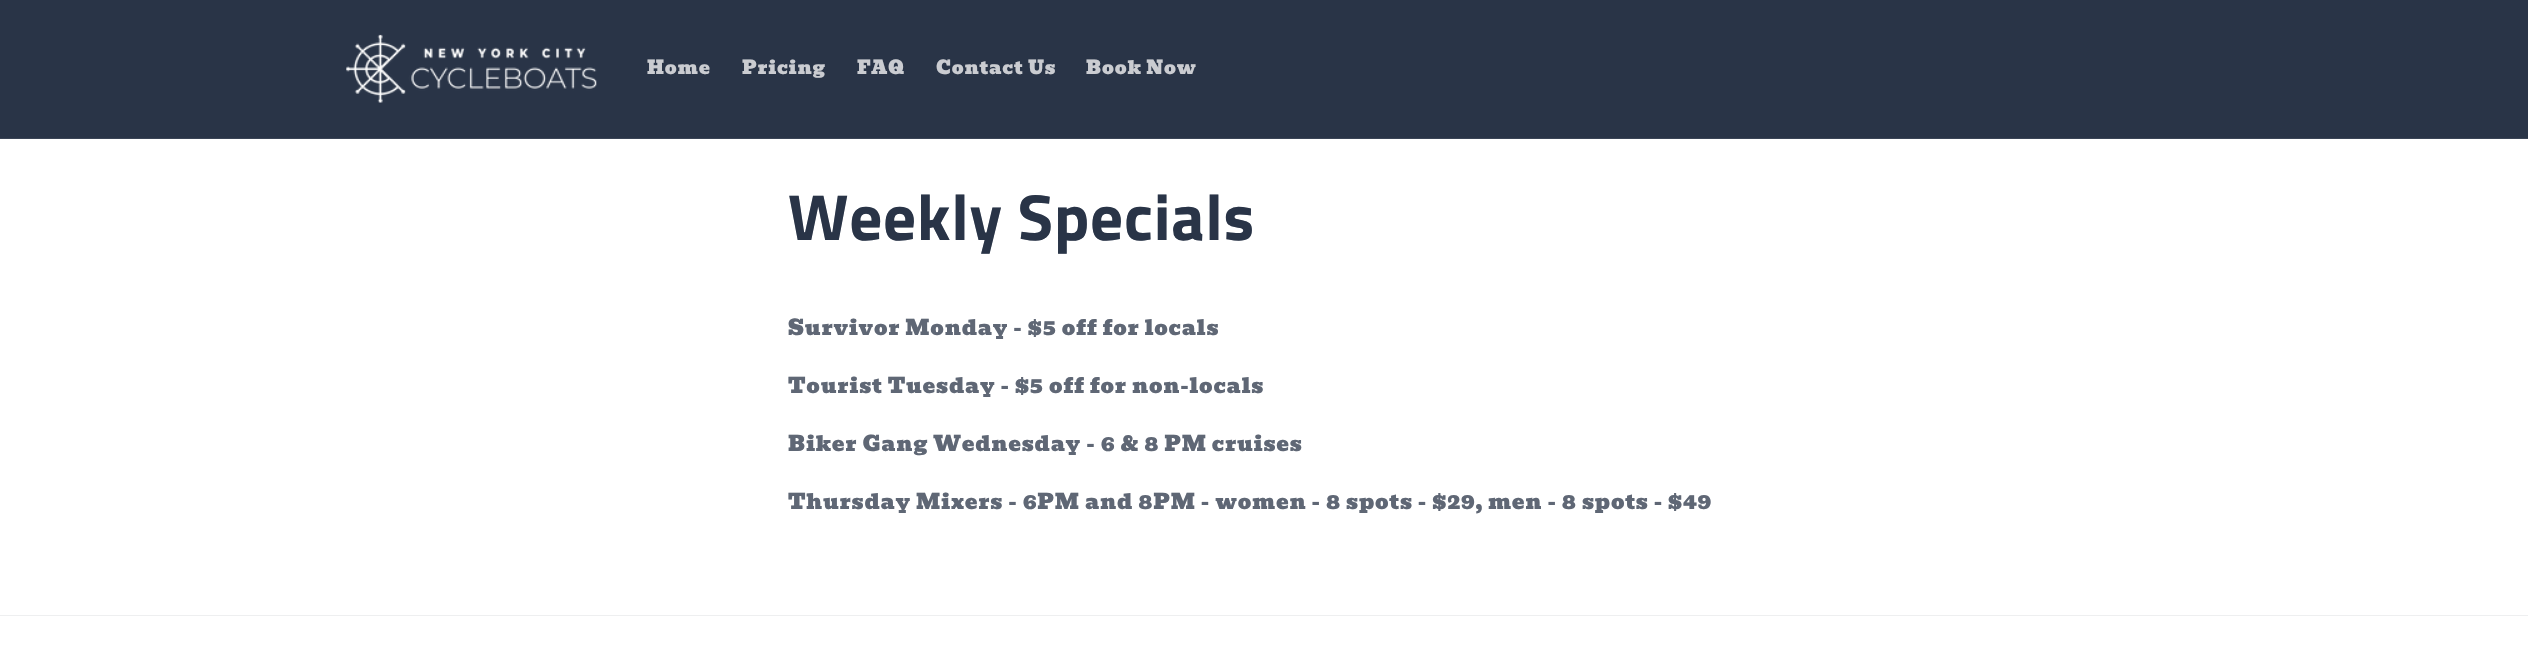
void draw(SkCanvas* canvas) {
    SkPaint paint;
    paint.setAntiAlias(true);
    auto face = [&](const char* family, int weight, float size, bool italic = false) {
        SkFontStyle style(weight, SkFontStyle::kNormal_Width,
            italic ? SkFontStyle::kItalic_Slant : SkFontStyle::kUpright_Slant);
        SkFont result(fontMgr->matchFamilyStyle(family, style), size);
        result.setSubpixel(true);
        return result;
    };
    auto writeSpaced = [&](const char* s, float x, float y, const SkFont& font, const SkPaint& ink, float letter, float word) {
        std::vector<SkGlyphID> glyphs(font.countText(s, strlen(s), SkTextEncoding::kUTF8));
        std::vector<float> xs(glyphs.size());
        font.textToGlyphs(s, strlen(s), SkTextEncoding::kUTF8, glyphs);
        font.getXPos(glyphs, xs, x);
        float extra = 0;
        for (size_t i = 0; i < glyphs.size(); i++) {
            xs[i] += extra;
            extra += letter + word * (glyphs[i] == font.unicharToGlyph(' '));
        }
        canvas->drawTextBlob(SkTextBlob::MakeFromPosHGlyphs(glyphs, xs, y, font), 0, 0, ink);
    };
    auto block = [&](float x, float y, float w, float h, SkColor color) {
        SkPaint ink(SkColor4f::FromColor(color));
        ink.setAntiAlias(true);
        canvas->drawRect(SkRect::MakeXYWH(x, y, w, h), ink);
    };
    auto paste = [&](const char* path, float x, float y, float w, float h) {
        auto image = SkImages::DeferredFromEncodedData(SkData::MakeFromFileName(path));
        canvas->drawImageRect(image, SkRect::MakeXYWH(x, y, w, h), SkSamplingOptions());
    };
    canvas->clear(SK_ColorWHITE);
    block(0, 0, 2528, 138, SkColorSetRGB(41, 52, 71));
    block(0, 138, 2528, 1, SkColorSetRGB(58, 68, 86));
    paste("pic1.png", 346, 34, 251, 69);
    auto kFont1 = face("Bevan", 400, 18.5f);
    paint.setColor(SkColorSetRGB(202, 204, 209));
    writeSpaced("Home", 647, 74, kFont1, paint, 0.8f, 0);
    writeSpaced("Pricing", 742, 74, kFont1, paint, 0.8f, 0);
    writeSpaced("FAQ", 857, 74, kFont1, paint, 0.8f, 0);
    writeSpaced("Contact Us", 936, 74, kFont1, paint, 0.8f, 0);
    writeSpaced("Book Now", 1086, 74, kFont1, paint, 0.8f, 0);
    auto kFont2 = face("Titillium Web", 700, 65);
    paint.setColor(SkColorSetRGB(41, 52, 71));
    writeSpaced("Weekly Specials", 788, 240, kFont2, paint, 0.75f, 0);
    auto kFont3 = face("Bevan", 400, 21);
    paint.setColor(SkColorSetRGB(95, 103, 117));
    writeSpaced("Survivor Monday - $5 off for locals", 788, 335, kFont3, paint, 0.8f, 0);
    writeSpaced("Tourist Tuesday - $5 off for non-locals", 788, 393, kFont3, paint, 0.8f, 0);
    writeSpaced("Biker Gang Wednesday - 6 & 8 PM cruises", 788, 451, kFont3, paint, 0.8f, 0);
    writeSpaced("Thursday Mixers - 6PM and 8PM - women - 8 spots - $29, men - 8 spots - $49", 788, 509, kFont3, paint, 0.8f, 0);
    block(0, 615, 2528, 1, SkColorSetRGB(238, 239, 240));
}
